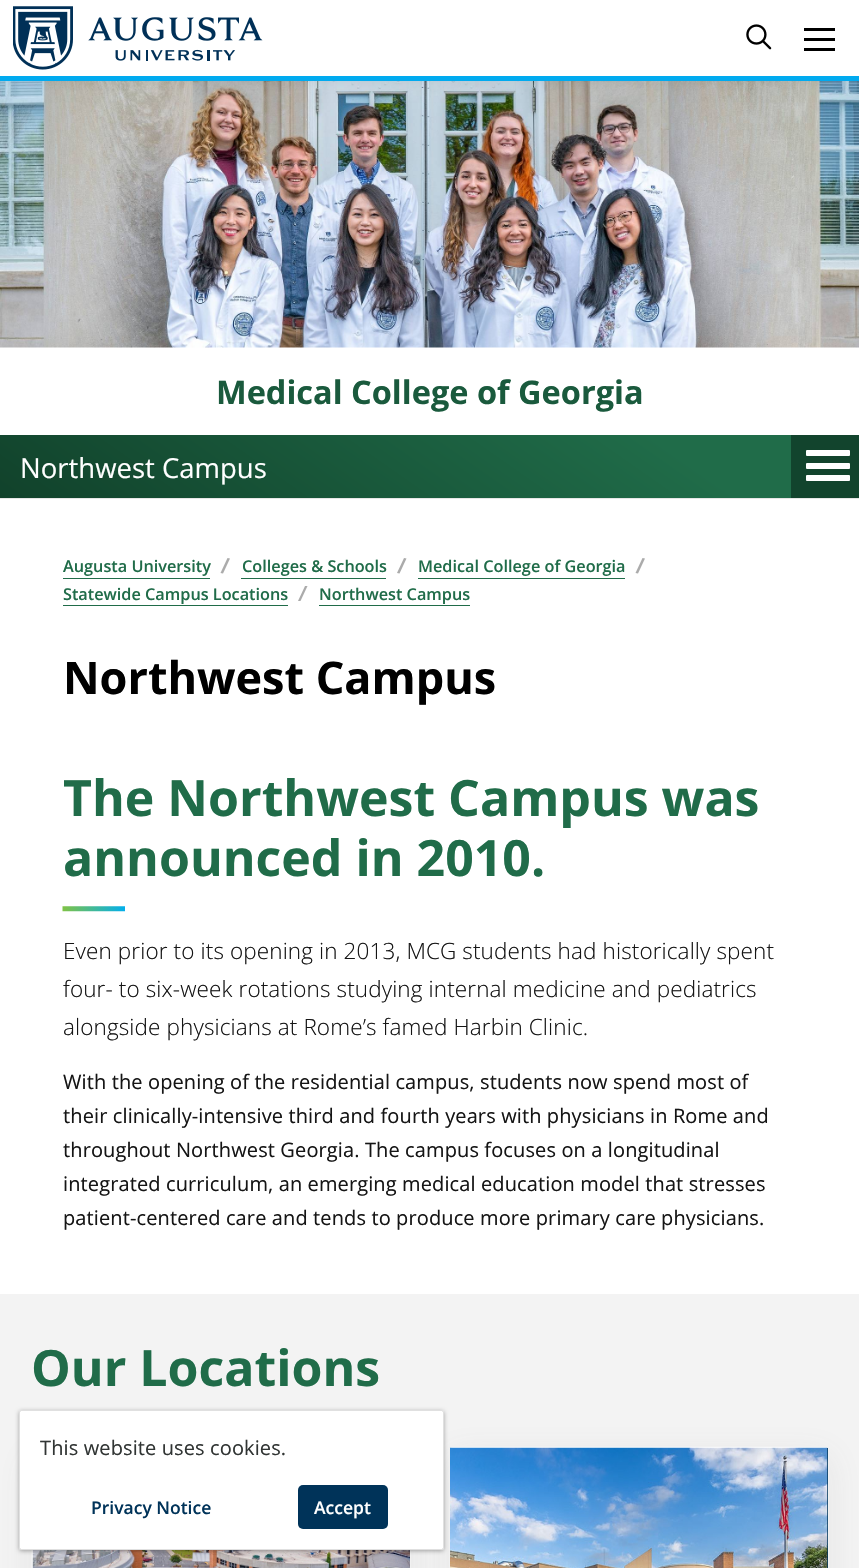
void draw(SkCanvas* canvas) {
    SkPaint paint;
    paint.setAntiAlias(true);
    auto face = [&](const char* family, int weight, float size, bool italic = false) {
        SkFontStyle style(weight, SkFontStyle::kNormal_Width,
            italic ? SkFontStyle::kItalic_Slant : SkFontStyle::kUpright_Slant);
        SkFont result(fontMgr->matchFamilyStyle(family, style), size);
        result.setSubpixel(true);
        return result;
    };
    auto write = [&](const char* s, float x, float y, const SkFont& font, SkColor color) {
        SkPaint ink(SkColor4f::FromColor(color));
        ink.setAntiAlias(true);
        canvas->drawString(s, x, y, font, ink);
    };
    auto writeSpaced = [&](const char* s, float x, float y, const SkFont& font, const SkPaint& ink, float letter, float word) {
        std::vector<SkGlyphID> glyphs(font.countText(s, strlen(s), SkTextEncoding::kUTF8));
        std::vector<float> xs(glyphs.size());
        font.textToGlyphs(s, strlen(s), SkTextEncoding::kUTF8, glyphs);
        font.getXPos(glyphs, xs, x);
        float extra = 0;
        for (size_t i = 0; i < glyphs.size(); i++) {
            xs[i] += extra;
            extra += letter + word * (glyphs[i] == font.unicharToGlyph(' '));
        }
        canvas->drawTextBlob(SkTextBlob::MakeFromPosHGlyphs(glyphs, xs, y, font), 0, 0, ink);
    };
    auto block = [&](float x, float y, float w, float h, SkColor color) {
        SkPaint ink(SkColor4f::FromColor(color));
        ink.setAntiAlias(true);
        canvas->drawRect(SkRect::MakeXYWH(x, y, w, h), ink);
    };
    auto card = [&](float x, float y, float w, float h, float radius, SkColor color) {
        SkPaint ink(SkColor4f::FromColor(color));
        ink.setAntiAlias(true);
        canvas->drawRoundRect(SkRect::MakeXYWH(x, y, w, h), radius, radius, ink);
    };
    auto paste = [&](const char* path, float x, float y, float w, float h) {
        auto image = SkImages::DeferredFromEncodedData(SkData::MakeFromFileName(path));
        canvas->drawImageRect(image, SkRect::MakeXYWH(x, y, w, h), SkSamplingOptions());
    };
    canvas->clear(SK_ColorWHITE);
    paste("pic3.png", 0, 81, 859, 267);
    paint.setColor(SkColorSetARGB(43, 0, 0, 0));
    paint.setMaskFilter(SkMaskFilter::MakeBlur(kNormal_SkBlurStyle, 9.5f));
    canvas->drawRect(SkRect::MakeXYWH(0, 0, 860, 75), paint);
    paint.setMaskFilter(nullptr);
    block(0, 0, 859, 76, SK_ColorWHITE);
    block(0, 76, 859, 5, SkColorSetRGB(0, 170, 239));
    paste("pic1.png", 13, 6, 250, 64);
    paste("pic2.png", 746, 24, 26, 26);
    block(804, 38, 31, 3, SK_ColorBLACK);
    block(804, 28, 31, 3, SK_ColorBLACK);
    block(804, 48, 31, 3, SK_ColorBLACK);
    auto kFont1 = face("Open Sans", 700, 32.5f);
    write("Medical College of Georgia", 216, 404, kFont1, SkColorSetRGB(26, 90, 61));
    block(0, 498, 859, 1, SkColorSetRGB(230, 230, 230));
    {
        const SkColor colors[] = {SkColorSetRGB(32, 108, 73), SkColorSetRGB(17, 66, 43)};
        const float stops[] = {0.22f, 1};
        const SkPoint ends[] = {{586, 243}, {274, 689}};
        paint.setShader(SkGradientShader::MakeLinear(ends, colors, stops, 2, SkTileMode::kClamp));
        paint.setAlpha(255);
    }
    canvas->drawRect(SkRect::MakeXYWH(0, 435, 791, 63), paint);
    auto kFont2 = face("Open Sans", 400, 27.5f);
    write("Northwest Campus", 20, 478, kFont2, SK_ColorWHITE);
    block(791, 435, 68, 63, SkColorSetRGB(18, 68, 45));
    card(806, 463, 44, 6, 1, SK_ColorWHITE);
    card(806, 450, 44, 6, 1, SK_ColorWHITE);
    card(806, 475, 44, 6, 1, SK_ColorWHITE);
    auto kFont3 = face("Open Sans", 600, 16.25f);
    write("Augusta University", 63, 572, kFont3, SkColorSetRGB(32, 108, 73));
    block(63, 578, 147, 1, SkColorSetRGB(32, 108, 73));
    paint.setShader(nullptr);
    paint.setColor(SkColorSetRGB(171, 171, 171));
    canvas->drawPath(SkPathBuilder().moveTo(227.5f, 558).lineTo(230, 558.5f).lineTo(223, 573.5f).lineTo(220.5f, 573).close().detach(), paint);
    write("Colleges & Schools", 242, 572, kFont3, SkColorSetRGB(32, 108, 73));
    block(241, 578, 145, 1, SkColorSetRGB(32, 108, 73));
    canvas->drawPath(SkPathBuilder().moveTo(404, 558).lineTo(406.5f, 558.5f).lineTo(399.5f, 573.5f).lineTo(397, 573).close().detach(), paint);
    write("Medical College of Georgia", 418, 572, kFont3, SkColorSetRGB(32, 108, 73));
    block(418, 578, 207, 1, SkColorSetRGB(32, 108, 73));
    canvas->drawPath(SkPathBuilder().moveTo(642.5f, 558).lineTo(645, 558.5f).lineTo(638, 573.5f).lineTo(635.5f, 573).close().detach(), paint);
    write("Statewide Campus Locations", 63, 600, kFont3, SkColorSetRGB(32, 108, 73));
    block(63, 605, 225, 1, SkColorSetRGB(32, 108, 73));
    canvas->drawPath(SkPathBuilder().moveTo(305, 586).lineTo(307.5f, 586).lineTo(300.5f, 601).lineTo(298, 601).close().detach(), paint);
    write("Northwest Campus", 319, 600, kFont3, SkColorSetRGB(32, 108, 73));
    block(319, 605, 151, 1, SkColorSetRGB(32, 108, 73));
    auto kFont4 = face("Open Sans", 700, 45);
    write("Northwest Campus", 63, 694, kFont4, SK_ColorBLACK);
    auto kFont5 = face("Open Sans", 700, 50);
    write("The Northwest Campus was", 63, 816, kFont5, SkColorSetRGB(32, 108, 73));
    write("announced in 2010.", 63, 876, kFont5, SkColorSetRGB(32, 108, 73));
    paste("pic4.png", 62, 906, 63, 6);
    auto kFont6 = face("Open Sans", 300, 22.5f);
    paint.setColor(SkColorSetRGB(21, 21, 21));
    writeSpaced("Even prior to its opening in 2013, MCG students had historically spent", 63, 959, kFont6, paint, 0.12f, 0);
    writeSpaced("four- to six-week rotations studying internal medicine and pediatrics", 63, 997, kFont6, paint, 0.12f, 0);
    writeSpaced("alongside physicians at Rome’s famed Harbin Clinic.", 63, 1035, kFont6, paint, 0.12f, 0);
    auto kFont7 = face("Open Sans", 400, 20);
    writeSpaced("With the opening of the residential campus, students now spend most of", 63, 1089, kFont7, paint, 0.12f, 0);
    writeSpaced("their clinically-intensive third and fourth years with physicians in Rome and", 63, 1123, kFont7, paint, 0.12f, 0);
    writeSpaced("throughout Northwest Georgia. The campus focuses on a longitudinal", 63, 1157, kFont7, paint, 0.12f, 0);
    writeSpaced("integrated curriculum, an emerging medical education model that stresses", 63, 1191, kFont7, paint, 0.12f, 0);
    writeSpaced("patient-centered care and tends to produce more primary care physicians.", 63, 1225, kFont7, paint, 0.12f, 0);
    block(0, 1294, 859, 274, SkColorSetRGB(243, 243, 243));
    write("Our Locations", 31, 1386, kFont5, SkColorSetRGB(32, 108, 73));
    paint.setColor(SkColorSetARGB(26, 100, 100, 100));
    paint.setMaskFilter(SkMaskFilter::MakeBlur(kNormal_SkBlurStyle, 17.5f));
    canvas->drawRoundRect(SkRect::MakeXYWH(31, 1456, 380, 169), 4, 4, paint);
    paint.setMaskFilter(nullptr);
    block(32, 1550, 1, 18, SK_ColorWHITE);
    paint.setStyle(SkPaint::kStroke_Style);
    paint.setStrokeWidth(1);
    paint.setColor(SkColorSetRGB(241, 241, 241));
    canvas->drawRect(SkRect::MakeXYWH(31.5f, 1446.5f, 379, 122), paint);
    paste("pic5.png", 32, 1550, 378, 18);
    paint.setStyle(SkPaint::kFill_Style);
    paint.setColor(SkColorSetARGB(26, 100, 100, 100));
    paint.setMaskFilter(SkMaskFilter::MakeBlur(kNormal_SkBlurStyle, 17.5f));
    canvas->drawRoundRect(SkRect::MakeXYWH(449, 1456, 380, 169), 4, 4, paint);
    paint.setMaskFilter(nullptr);
    paint.setColor(SK_ColorWHITE);
    canvas->drawRoundRect(SkRect::MakeXYWH(449.5f, 1446.5f, 379, 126), 3.5f, 3.5f, paint);
    paint.setStyle(SkPaint::kStroke_Style);
    paint.setColor(SkColorSetRGB(241, 241, 241));
    canvas->drawRoundRect(SkRect::MakeXYWH(449.5f, 1446.5f, 379, 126), 3.5f, 3.5f, paint);
    paint.setStyle(SkPaint::kFill_Style);
    {
        const SkColor colors[] = {SkColorSetRGB(0, 51, 89), SkColorSetRGB(100, 160, 200)};
        const float stops[] = {0.7f, 1};
        const SkPoint ends[] = {{595, 1409}, {682, 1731}};
        paint.setShader(SkGradientShader::MakeLinear(ends, colors, stops, 2, SkTileMode::kClamp));
        paint.setAlpha(255);
    }
    canvas->drawRect(SkRect::MakeXYWH(827, 1448, 1, 120), paint);
    paste("pic6.png", 450, 1447, 378, 121);
    paint.setShader(nullptr);
    paint.setColor(SkColorSetARGB(84, 0, 0, 0));
    paint.setMaskFilter(SkMaskFilter::MakeBlur(kNormal_SkBlurStyle, 2));
    canvas->drawRoundRect(SkRect::MakeXYWH(19, 1411, 425, 140), 2.5f, 2.5f, paint);
    paint.setMaskFilter(nullptr);
    card(19, 1410, 425, 140, 2.5f, SK_ColorWHITE);
    paint.setStyle(SkPaint::kStroke_Style);
    paint.setColor(SkColorSetARGB(31, 0, 0, 0));
    canvas->drawRoundRect(SkRect::MakeXYWH(19.5f, 1410.5f, 424, 139), 2, 2, paint);
    paint.setStyle(SkPaint::kFill_Style);
    paint.setColor(SkColorSetRGB(49, 53, 52));
    writeSpaced("This website uses cookies.", 40, 1455, kFont7, paint, 0.12f, 0);
    auto kFont8 = face("Open Sans", 600, 17.5f);
    write("Privacy Notice", 91, 1514, kFont8, SkColorSetRGB(0, 51, 89));
    card(298, 1485, 90, 44, 5, SkColorSetRGB(0, 51, 89));
    write("Accept", 314, 1514, kFont8, SK_ColorWHITE);
}
